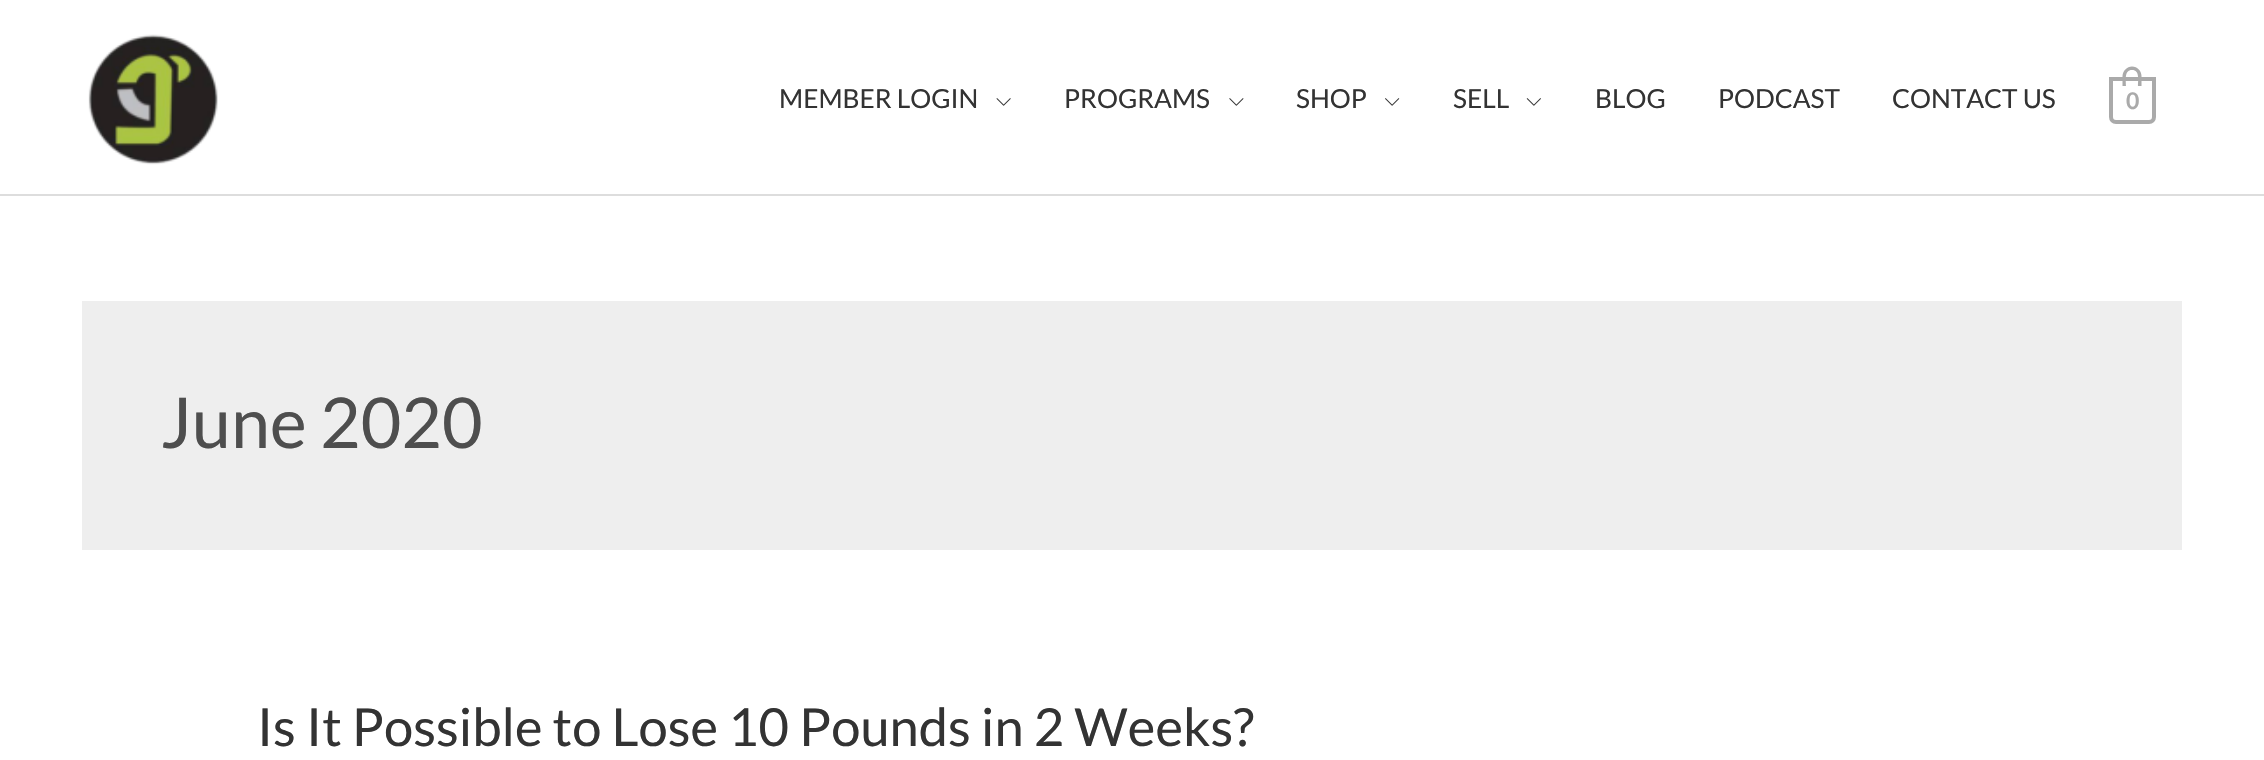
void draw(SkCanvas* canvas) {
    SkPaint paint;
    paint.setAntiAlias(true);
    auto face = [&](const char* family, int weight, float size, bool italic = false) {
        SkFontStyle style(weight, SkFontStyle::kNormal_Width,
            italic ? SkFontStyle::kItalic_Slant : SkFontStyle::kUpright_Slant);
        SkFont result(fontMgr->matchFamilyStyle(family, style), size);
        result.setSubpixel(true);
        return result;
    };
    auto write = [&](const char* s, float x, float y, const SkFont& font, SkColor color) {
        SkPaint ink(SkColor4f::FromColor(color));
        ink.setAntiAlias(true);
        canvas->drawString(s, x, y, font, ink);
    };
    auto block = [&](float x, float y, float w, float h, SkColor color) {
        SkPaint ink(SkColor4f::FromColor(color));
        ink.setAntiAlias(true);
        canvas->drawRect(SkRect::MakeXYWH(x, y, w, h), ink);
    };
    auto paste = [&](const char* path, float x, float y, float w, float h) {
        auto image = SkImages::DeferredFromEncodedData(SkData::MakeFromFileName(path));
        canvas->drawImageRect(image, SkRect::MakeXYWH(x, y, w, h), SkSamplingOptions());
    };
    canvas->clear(SK_ColorWHITE);
    block(0, 194, 2264, 2, SkColorSetRGB(221, 221, 221));
    paste("pic1.png", 88, 34, 130, 131);
    auto kFont1 = face("Lato", 400, 26.25f);
    write("MEMBER LOGIN", 779, 108, kFont1, SkColorSetRGB(51, 51, 51));
    paste("pic2.png", 996, 98, 15, 8);
    write("PROGRAMS", 1064, 108, kFont1, SkColorSetRGB(51, 51, 51));
    paste("pic3.png", 1229, 98, 15, 8);
    write("SHOP", 1296, 108, kFont1, SkColorSetRGB(51, 51, 51));
    paste("pic4.png", 1385, 98, 15, 8);
    write("SELL", 1453, 108, kFont1, SkColorSetRGB(51, 51, 51));
    paste("pic5.png", 1526, 98, 15, 8);
    write("BLOG", 1595, 108, kFont1, SkColorSetRGB(51, 51, 51));
    write("PODCAST", 1718, 108, kFont1, SkColorSetRGB(51, 51, 51));
    write("CONTACT US", 1892, 108, kFont1, SkColorSetRGB(51, 51, 51));
    paint.setStyle(SkPaint::kStroke_Style);
    paint.setStrokeWidth(4);
    paint.setColor(SkColorSetRGB(170, 170, 170));
    canvas->drawPath(SkPathBuilder().moveTo(2111, 79).lineTo(2154, 79).lineTo(2154, 117).cubicTo(2154, 120, 2152, 122, 2149, 122).lineTo(2116, 122).cubicTo(2113, 122, 2111, 120, 2111, 117).close().detach(), paint);
    paint.setStyle(SkPaint::kFill_Style);
    canvas->drawPath(SkPathBuilder(SkPathFillType::kEvenOdd).moveTo(2132, 66.5f).cubicTo(2137.5f, 66.5f, 2141.5f, 71, 2141.5f, 76).lineTo(2141.5f, 86).lineTo(2122.5f, 86).lineTo(2122.5f, 76).cubicTo(2122.5f, 71, 2127, 66.5f, 2132, 66.5f).close().moveTo(2132, 70).cubicTo(2140, 70, 2138, 80.5f, 2138, 86).lineTo(2126, 86).cubicTo(2126, 80.5f, 2124, 70, 2132, 70).close().detach(), paint);
    auto kFont2 = face("Lato", 700, 23);
    write("0", 2126, 109, kFont2, SkColorSetRGB(170, 170, 170));
    block(82, 301, 2100, 249, SkColorSetRGB(238, 238, 238));
    auto kFont3 = face("Lato", 400, 70);
    write("June 2020", 161, 448, kFont3, SkColorSetRGB(78, 78, 78));
    auto kFont4 = face("Lato", 400, 52.5f);
    write("Is It Possible to Lose 10 Pounds in 2 Weeks?", 257, 746, kFont4, SkColorSetRGB(51, 51, 51));
}
